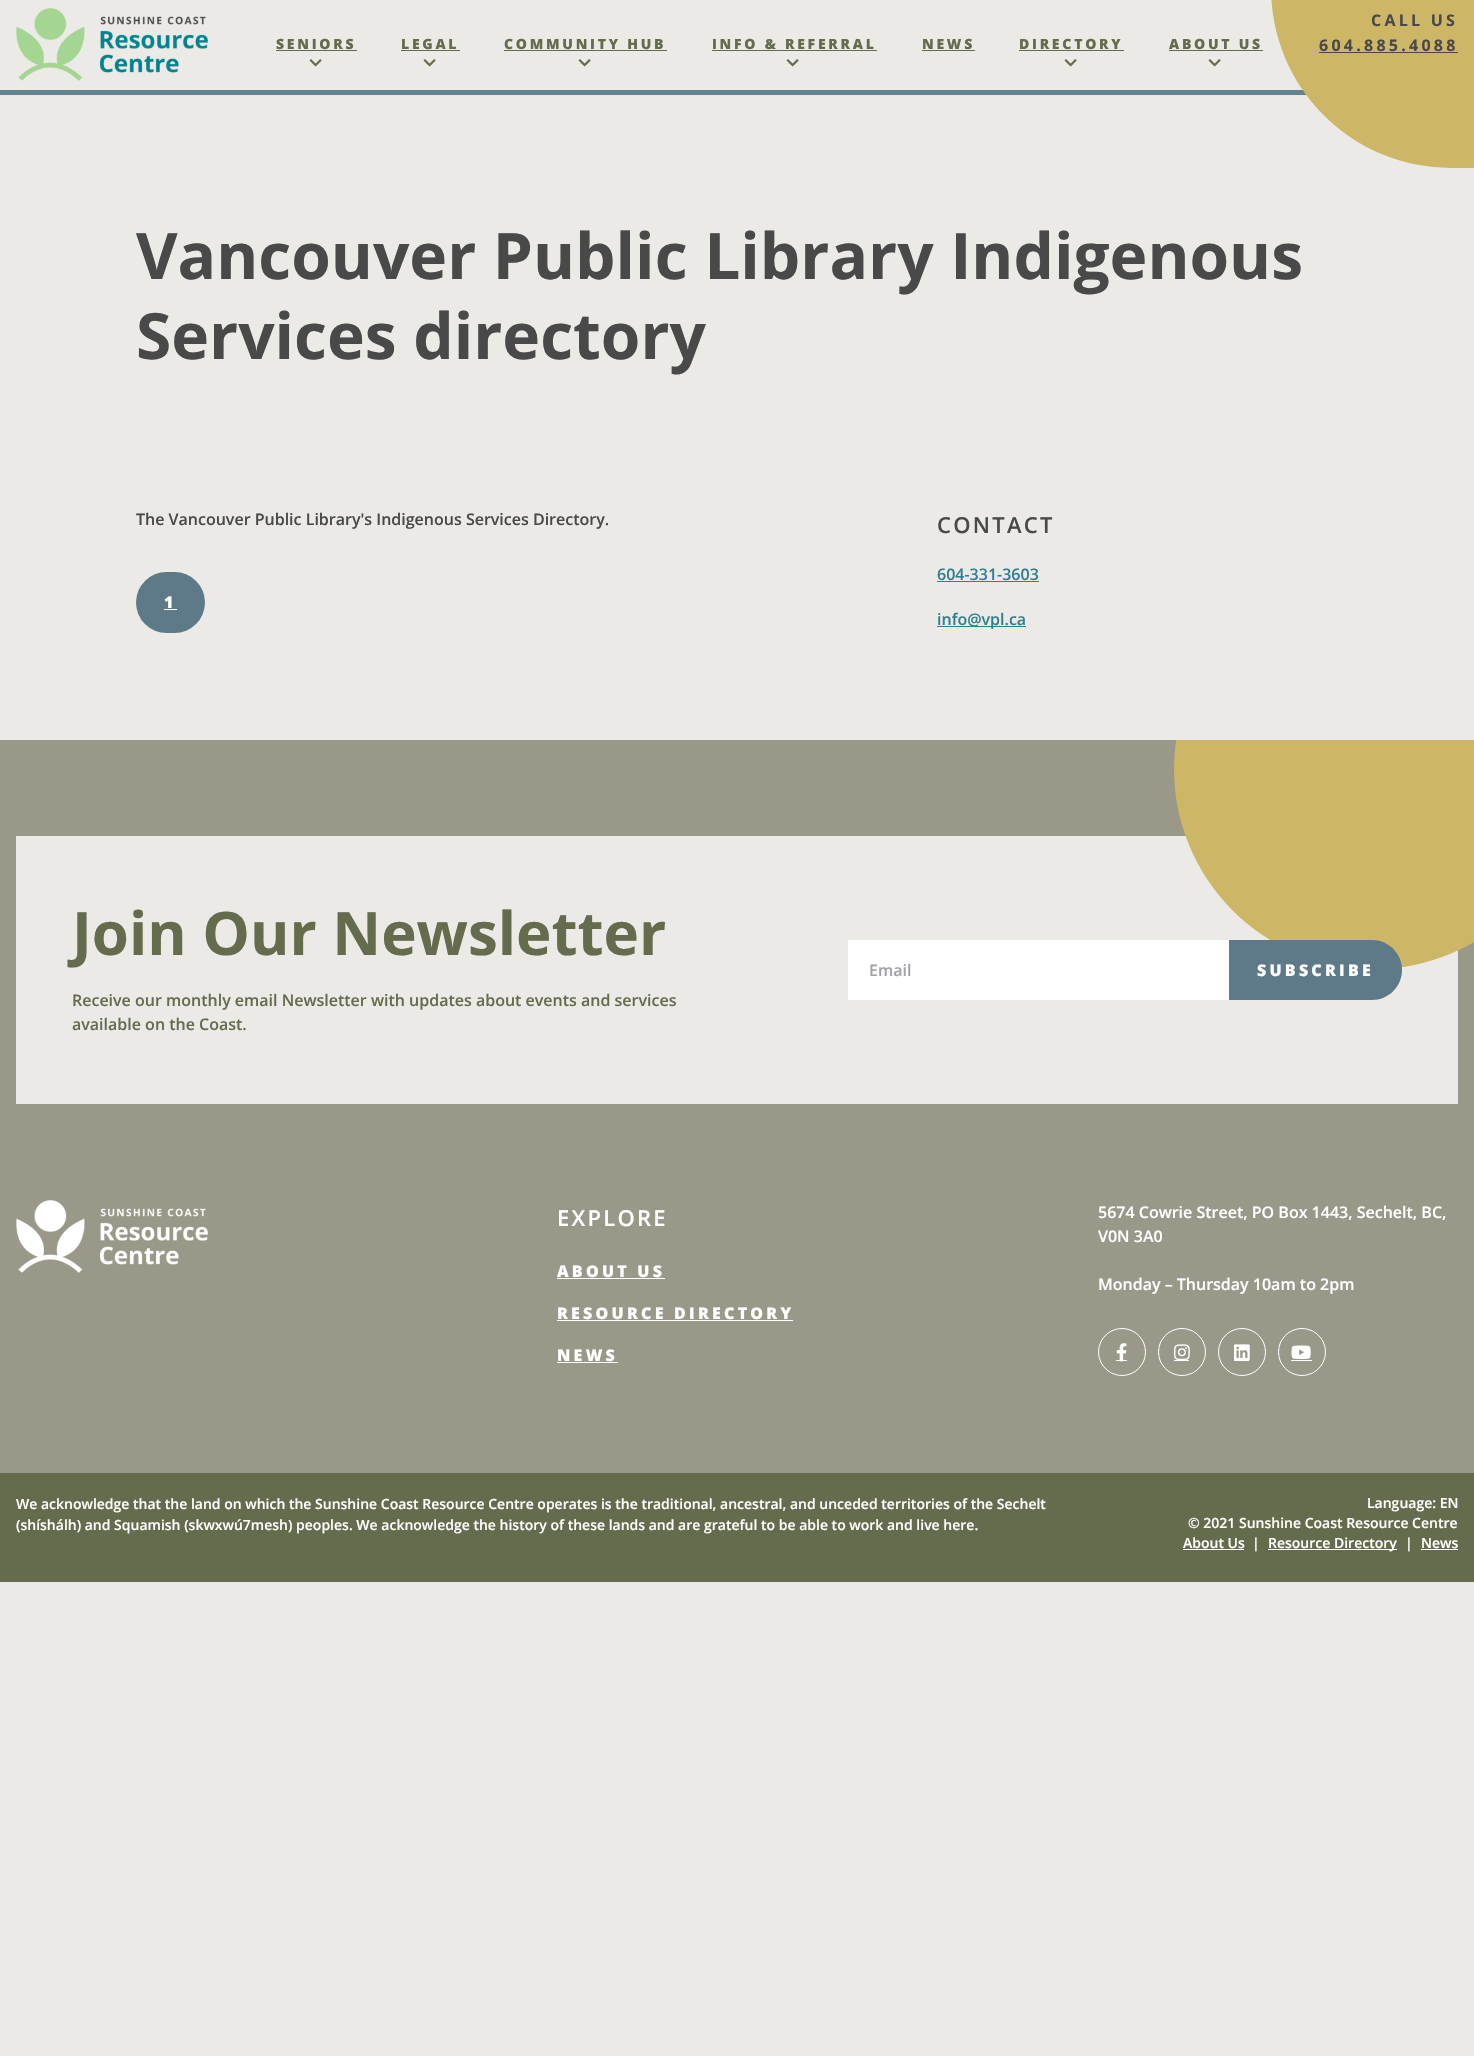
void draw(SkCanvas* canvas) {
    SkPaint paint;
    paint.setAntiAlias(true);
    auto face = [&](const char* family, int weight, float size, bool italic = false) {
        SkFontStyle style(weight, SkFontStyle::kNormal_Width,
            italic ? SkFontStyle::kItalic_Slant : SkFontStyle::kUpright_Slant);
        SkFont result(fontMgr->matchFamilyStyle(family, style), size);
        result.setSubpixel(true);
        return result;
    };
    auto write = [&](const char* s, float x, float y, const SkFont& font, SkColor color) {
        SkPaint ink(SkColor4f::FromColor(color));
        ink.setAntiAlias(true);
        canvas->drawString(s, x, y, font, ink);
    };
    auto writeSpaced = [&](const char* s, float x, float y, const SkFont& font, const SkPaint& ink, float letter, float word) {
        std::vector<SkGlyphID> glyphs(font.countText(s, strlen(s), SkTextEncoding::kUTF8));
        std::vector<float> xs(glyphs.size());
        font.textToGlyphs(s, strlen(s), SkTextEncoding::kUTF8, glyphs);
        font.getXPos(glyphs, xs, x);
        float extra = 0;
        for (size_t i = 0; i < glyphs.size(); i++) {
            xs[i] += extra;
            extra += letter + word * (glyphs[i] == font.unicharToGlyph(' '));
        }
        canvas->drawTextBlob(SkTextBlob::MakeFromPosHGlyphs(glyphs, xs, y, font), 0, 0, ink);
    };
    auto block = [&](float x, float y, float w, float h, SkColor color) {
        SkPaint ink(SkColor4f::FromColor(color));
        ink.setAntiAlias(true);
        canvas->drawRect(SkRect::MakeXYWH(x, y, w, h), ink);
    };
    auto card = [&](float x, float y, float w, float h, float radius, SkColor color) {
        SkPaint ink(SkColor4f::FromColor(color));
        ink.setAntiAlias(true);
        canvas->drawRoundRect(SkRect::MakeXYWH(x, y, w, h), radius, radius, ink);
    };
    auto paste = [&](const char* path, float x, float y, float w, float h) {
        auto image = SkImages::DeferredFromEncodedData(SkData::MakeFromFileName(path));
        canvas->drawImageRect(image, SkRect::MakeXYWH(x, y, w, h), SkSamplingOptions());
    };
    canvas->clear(SkColorSetRGB(235, 234, 231));
    block(0, 90, 1313, 5, SkColorSetRGB(100, 130, 145));
    paste("pic1.png", 16, 8, 192, 73);
    auto kFont1 = face("Open Sans", 800, 14);
    paint.setColor(SkColorSetRGB(101, 107, 77));
    writeSpaced("SENIORS", 276, 49, kFont1, paint, 2.75f, 0);
    block(276, 50, 81, 1, SkColorSetRGB(101, 107, 77));
    paste("pic2.png", 309, 59, 13, 8);
    writeSpaced("LEGAL", 401, 49, kFont1, paint, 2.75f, 0);
    block(401, 50, 59, 1, SkColorSetRGB(101, 107, 77));
    paste("pic2.png", 423, 59, 13, 8);
    writeSpaced("COMMUNITY HUB", 504, 49, kFont1, paint, 2.75f, 0);
    block(504, 50, 163, 1, SkColorSetRGB(101, 107, 77));
    paste("pic2.png", 578, 59, 13, 8);
    writeSpaced("INFO & REFERRAL", 712, 49, kFont1, paint, 2.75f, 0);
    block(712, 50, 165, 1, SkColorSetRGB(101, 107, 77));
    paste("pic2.png", 786, 59, 13, 8);
    writeSpaced("NEWS", 922, 49, kFont1, paint, 2.75f, 0);
    block(922, 50, 53, 1, SkColorSetRGB(101, 107, 77));
    writeSpaced("DIRECTORY", 1019, 49, kFont1, paint, 2.75f, 0);
    block(1019, 50, 105, 1, SkColorSetRGB(101, 107, 77));
    paste("pic2.png", 1064, 59, 13, 8);
    writeSpaced("ABOUT US", 1169, 49, kFont1, paint, 2.75f, 0);
    block(1169, 50, 94, 1, SkColorSetRGB(101, 107, 77));
    paste("pic2.png", 1208, 59, 13, 8);
    card(1271, -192, 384, 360, 192, SkColorSetRGB(205, 183, 102));
    auto kFont2 = face("Open Sans", 700, 16);
    paint.setColor(SkColorSetRGB(73, 73, 73));
    writeSpaced("CALL US", 1371, 26, kFont2, paint, 3.25f, 0);
    writeSpaced("604.885.4088", 1319, 51, kFont2, paint, 3.25f, 0);
    block(1319, 52, 139, 1, SkColorSetRGB(73, 73, 73));
    auto kFont3 = face("Open Sans", 700, 64);
    write("Vancouver Public Library Indigenous", 136, 279, kFont3, SkColorSetRGB(73, 73, 73));
    write("Services directory", 136, 359, kFont3, SkColorSetRGB(73, 73, 73));
    auto kFont4 = face("Open Sans", 600, 16);
    write("The Vancouver Public Library's Indigenous Services Directory.", 136, 525, kFont4, SkColorSetRGB(73, 73, 73));
    card(136, 572, 69, 61, 30.5f, SkColorSetRGB(94, 122, 137));
    auto kFont5 = face("Open Sans", 800, 16);
    paint.setColor(SK_ColorWHITE);
    writeSpaced("1", 164, 608, kFont5, paint, 3.25f, 0);
    block(164, 609, 13, 1, SK_ColorWHITE);
    auto kFont6 = face("Open Sans", 600, 22);
    paint.setColor(SkColorSetRGB(73, 73, 73));
    writeSpaced("CONTACT", 937, 533, kFont6, paint, 2.25f, 0);
    write("604-331-3603", 937, 580, kFont4, SkColorSetRGB(48, 129, 142));
    block(937, 581, 102, 1, SkColorSetRGB(48, 129, 142));
    block(937, 626, 89, 1, SkColorSetRGB(48, 129, 142));
    write("info@vpl.ca", 937, 625, kFont4, SkColorSetRGB(48, 129, 142));
    block(0, 740, 1474, 733, SkColorSetRGB(154, 152, 137));
    block(16, 836, 1442, 268, SkColorSetRGB(235, 234, 231));
    auto kFont7 = face("Open Sans", 700, 60);
    write("Join Our Newsletter", 72, 955, kFont7, SkColorSetRGB(101, 107, 77));
    write("Receive our monthly email Newsletter with updates about events and services", 72, 1006, kFont4, SkColorSetRGB(101, 107, 77));
    write("available on the Coast.", 72, 1030, kFont4, SkColorSetRGB(101, 107, 77));
    canvas->save();
    canvas->clipRect(SkRect::MakeXYWH(0, 740, 1474, 842));
    paint.setColor(SkColorSetRGB(205, 183, 102));
    canvas->drawCircle(1374, 769, 200, paint);
    canvas->restore();
    block(848, 940, 381, 60, SK_ColorWHITE);
    write("Email", 869, 976, kFont4, SkColorSetRGB(161, 161, 170));
    paint.setColor(SkColorSetRGB(94, 122, 137));
    canvas->drawPath(SkPathBuilder().moveTo(1229, 940).lineTo(1372, 940).cubicTo(1388.5f, 940, 1402, 953.5f, 1402, 970).cubicTo(1402, 986.5f, 1388.5f, 1000, 1372, 1000).lineTo(1229, 1000).close().detach(), paint);
    paint.setColor(SK_ColorWHITE);
    writeSpaced("SUBSCRIBE", 1257, 976, kFont5, paint, 3.25f, 0);
    paste("pic3.png", 16, 1200, 192, 73);
    writeSpaced("EXPLORE", 557, 1226, kFont6, paint, 2.25f, 0);
    writeSpaced("ABOUT US", 557, 1277, kFont5, paint, 3.25f, 0);
    block(557, 1278, 108, 1, SK_ColorWHITE);
    writeSpaced("RESOURCE DIRECTORY", 557, 1319, kFont5, paint, 3.25f, 0);
    block(557, 1320, 236, 1, SK_ColorWHITE);
    writeSpaced("NEWS", 557, 1361, kFont5, paint, 3.25f, 0);
    block(557, 1362, 61, 1, SK_ColorWHITE);
    write("5674 Cowrie Street, PO Box 1443, Sechelt, BC,", 1098, 1218, kFont4, SK_ColorWHITE);
    write("V0N 3A0", 1098, 1242, kFont4, SK_ColorWHITE);
    write("Monday – Thursday 10am to 2pm", 1098, 1290, kFont4, SK_ColorWHITE);
    paint.setStyle(SkPaint::kStroke_Style);
    paint.setStrokeWidth(1);
    canvas->drawCircle(1122, 1352, 23.5f, paint);
    block(1116, 1360, 11, 1, SK_ColorWHITE);
    paste("pic4.png", 1116, 1343, 11, 19);
    canvas->drawCircle(1182, 1352, 23.5f, paint);
    block(1174, 1360, 15, 1, SK_ColorWHITE);
    paste("pic5.png", 1174, 1344, 16, 16);
    canvas->drawCircle(1242, 1352, 23.5f, paint);
    block(1234, 1360, 15, 1, SK_ColorWHITE);
    paste("pic6.png", 1234, 1344, 16, 16);
    canvas->drawCircle(1302, 1352, 23.5f, paint);
    block(1291, 1360, 21, 1, SK_ColorWHITE);
    paste("pic7.png", 1291, 1345, 20, 14);
    block(0, 1473, 1474, 109, SkColorSetRGB(101, 107, 77));
    auto kFont8 = face("Open Sans", 600, 14);
    write("We acknowledge that the land on which the Sunshine Coast Resource Centre operates is the traditional, ancestral, and unceded territories of the Sechelt", 16, 1509, kFont8, SK_ColorWHITE);
    write("(shíshálh) and Squamish (skwxwú7mesh) peoples. We acknowledge the history of these lands and are grateful to be able to work and live here.", 16, 1530, kFont8, SK_ColorWHITE);
    write("Language: EN", 1367, 1508, kFont8, SK_ColorWHITE);
    write("© 2021 Sunshine Coast Resource Centre", 1188, 1528, kFont8, SK_ColorWHITE);
    write("About Us", 1183, 1548, kFont8, SK_ColorWHITE);
    block(1183, 1549, 61, 1, SK_ColorWHITE);
    write("|", 1252, 1548, kFont8, SK_ColorWHITE);
    block(1268, 1549, 129, 1, SK_ColorWHITE);
    write("Resource Directory", 1268, 1548, kFont8, SK_ColorWHITE);
    write("|", 1405, 1548, kFont8, SK_ColorWHITE);
    write("News", 1421, 1548, kFont8, SK_ColorWHITE);
    block(1421, 1549, 37, 1, SK_ColorWHITE);
}
